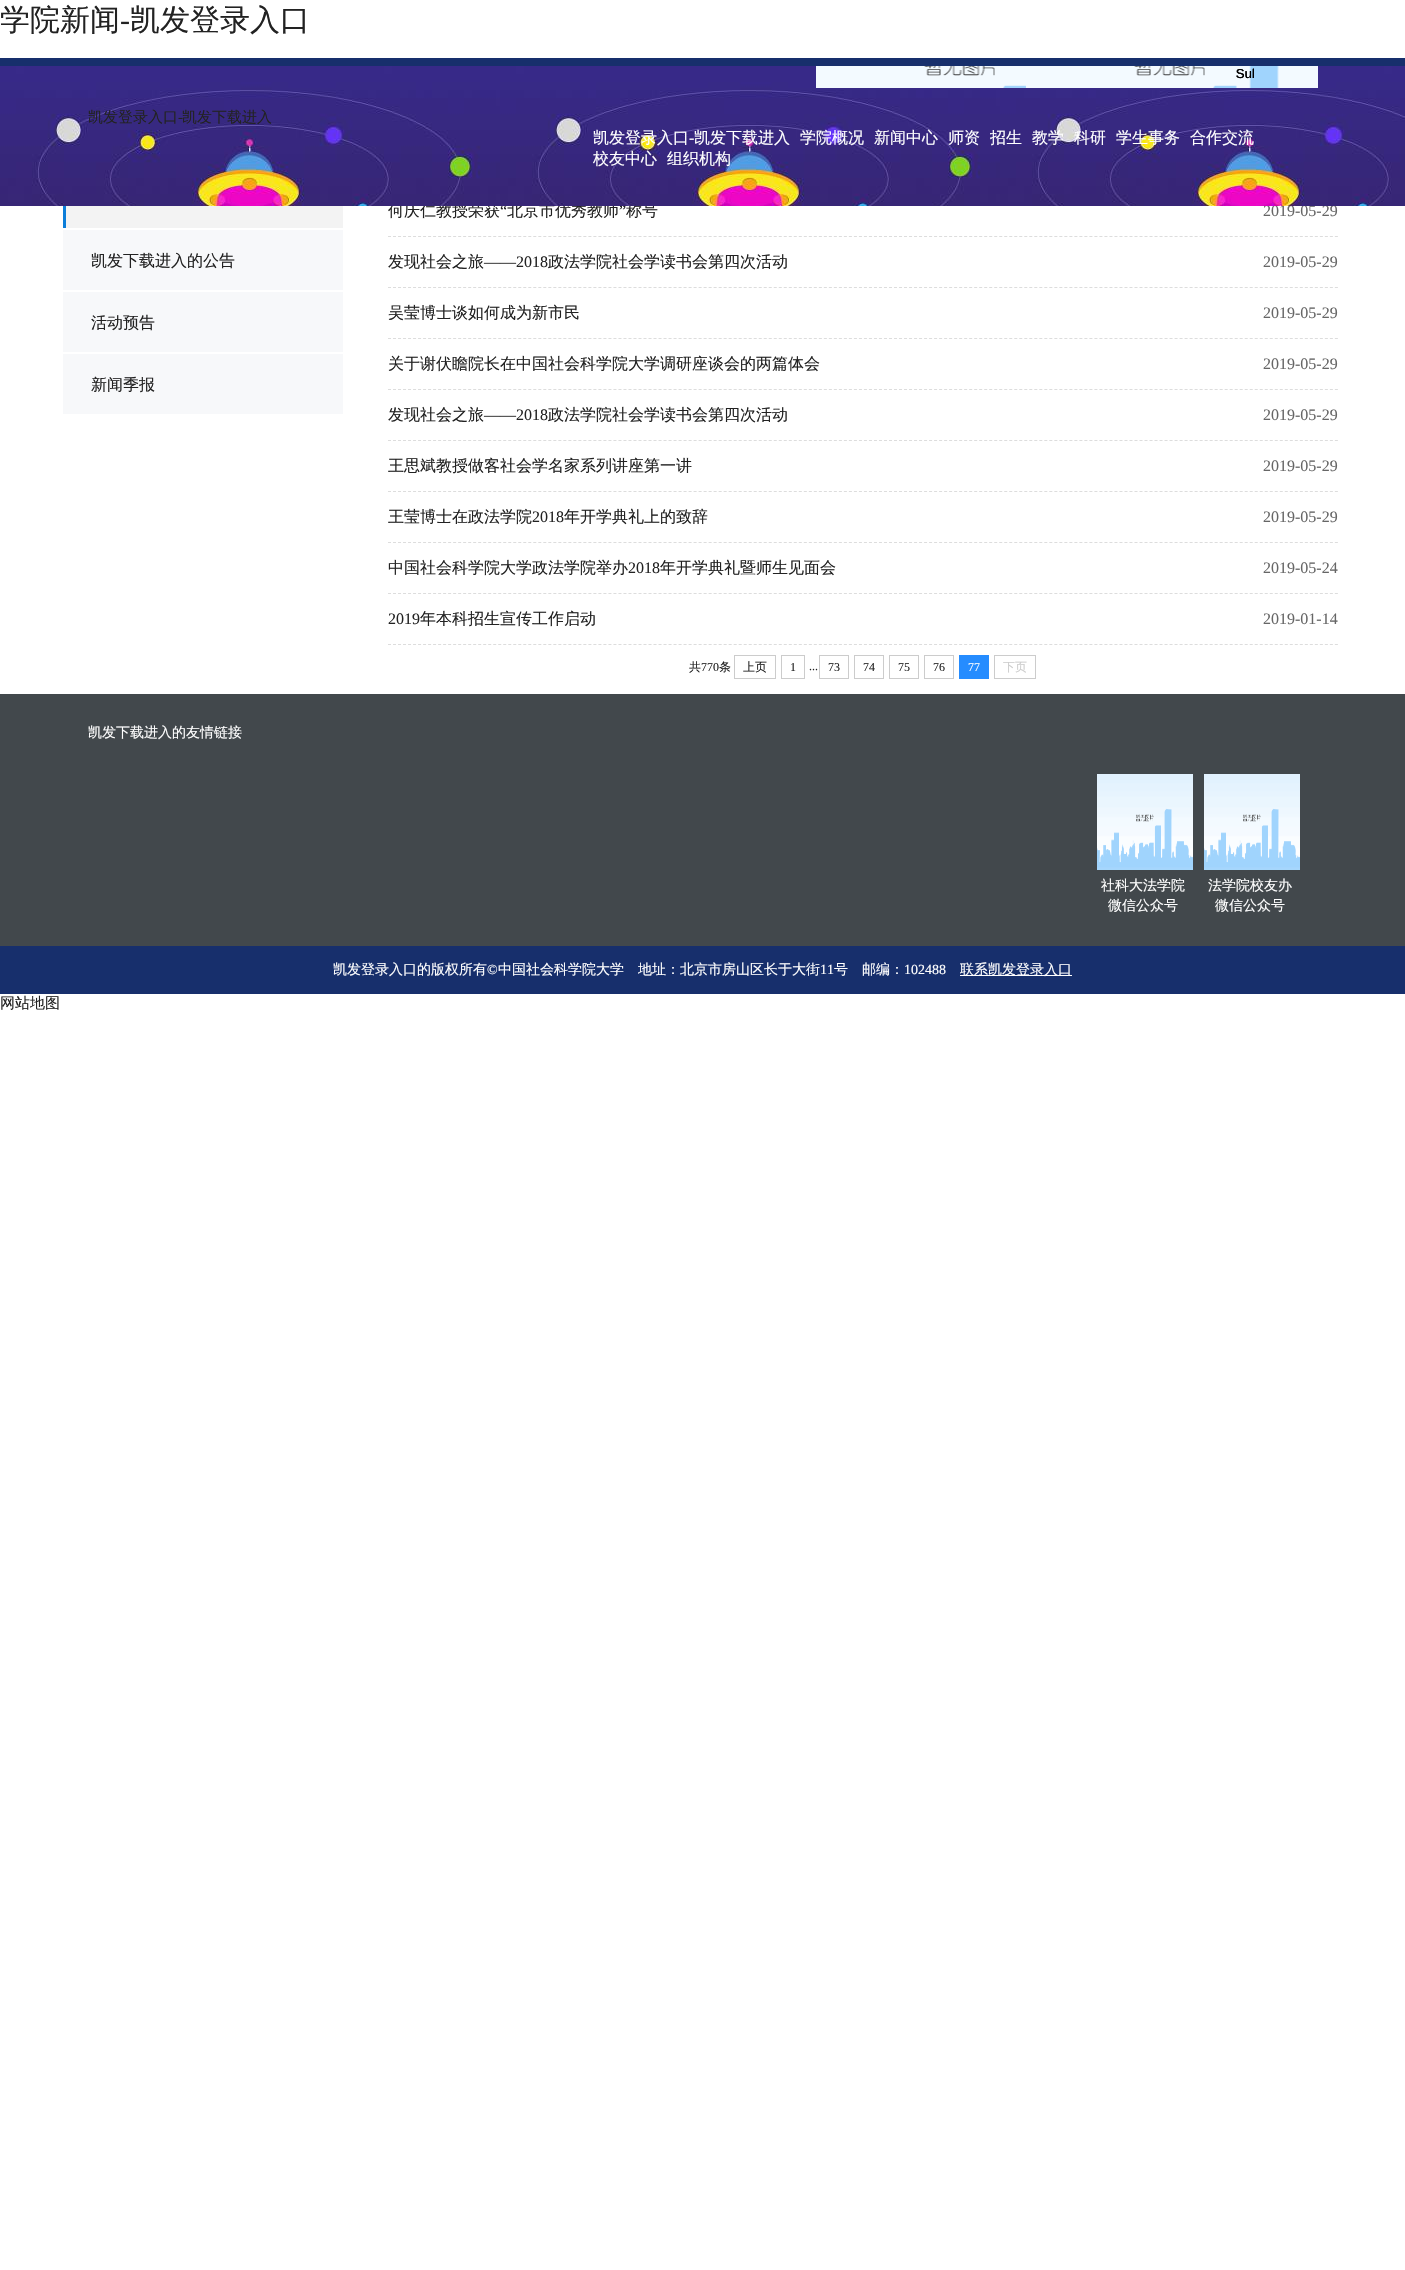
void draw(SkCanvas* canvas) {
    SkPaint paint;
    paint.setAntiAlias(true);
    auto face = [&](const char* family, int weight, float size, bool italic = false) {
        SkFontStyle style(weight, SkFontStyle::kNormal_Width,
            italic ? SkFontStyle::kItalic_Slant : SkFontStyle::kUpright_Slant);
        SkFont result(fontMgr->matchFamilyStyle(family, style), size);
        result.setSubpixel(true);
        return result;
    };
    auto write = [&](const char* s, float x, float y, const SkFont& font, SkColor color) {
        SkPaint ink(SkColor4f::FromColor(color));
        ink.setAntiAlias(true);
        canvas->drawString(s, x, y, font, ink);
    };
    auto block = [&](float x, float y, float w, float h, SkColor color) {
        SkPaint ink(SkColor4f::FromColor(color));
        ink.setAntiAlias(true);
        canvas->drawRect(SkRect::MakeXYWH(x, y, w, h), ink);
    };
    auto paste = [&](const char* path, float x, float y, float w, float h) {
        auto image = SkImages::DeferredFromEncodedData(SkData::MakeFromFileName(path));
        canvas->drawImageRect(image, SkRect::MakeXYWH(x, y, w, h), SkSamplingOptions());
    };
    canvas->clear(SK_ColorWHITE);
    auto kFont1 = face("WenQuanYi Zen Hei", 500, 30);
    write("学院新闻", 0, 30, kFont1, SkColorSetRGB(34, 34, 34));
    auto kFont2 = face("Liberation Serif", 400, 30);
    write("-", 120, 30, kFont2, SkColorSetRGB(34, 34, 34));
    write("凯发登录入口", 130, 30, kFont1, SkColorSetRGB(34, 34, 34));
    auto kFont3 = face("WenQuanYi Zen Hei", 500, 16);
    write("何庆仁教授荣获", 388, 216, kFont3, SkColorSetRGB(34, 34, 34));
    auto kFont4 = face("Liberation Serif", 400, 16);
    write("“", 500, 216, kFont4, SkColorSetRGB(34, 34, 34));
    write("北京市优秀教师", 507, 216, kFont3, SkColorSetRGB(34, 34, 34));
    write("”", 619, 216, kFont4, SkColorSetRGB(34, 34, 34));
    write("称号", 626, 216, kFont3, SkColorSetRGB(34, 34, 34));
    write("2019-05-29", 1263, 216, kFont4, SkColorSetRGB(102, 102, 102));
    paste("pic1.png", 0, 66, 1405, 140);
    block(0, 58, 1405, 8, SkColorSetRGB(23, 47, 108));
    paste("pic2.png", 816, 66, 210, 22);
    paste("pic3.png", 1026, 66, 292, 22);
    paste("pic4.png", 1236, 69, 18, 9);
    canvas->save();
    canvas->clipRect(SkRect::MakeXYWH(1236, 66, 18, 16));
    auto kFont5 = face("Liberation Sans", 400, 13);
    write("Sub", 1236, 78, kFont5, SK_ColorBLACK);
    canvas->restore();
    auto kFont6 = face("WenQuanYi Zen Hei", 500, 15);
    write("凯发登录入口", 88, 122, kFont6, SkColorSetRGB(34, 34, 34));
    auto kFont7 = face("Liberation Serif", 400, 15);
    write("-", 178, 122, kFont7, SkColorSetRGB(34, 34, 34));
    write("凯发下载进入", 182, 122, kFont6, SkColorSetRGB(34, 34, 34));
    write("凯发登录入口", 593, 143, kFont3, SK_ColorWHITE);
    write("-", 689, 143, kFont4, SK_ColorWHITE);
    write("凯发下载进入", 694, 143, kFont3, SK_ColorWHITE);
    write("学院概况", 800, 143, kFont3, SK_ColorWHITE);
    write("新闻中心", 874, 143, kFont3, SK_ColorWHITE);
    write("师资", 948, 143, kFont3, SK_ColorWHITE);
    write("招生", 990, 143, kFont3, SK_ColorWHITE);
    write("教学", 1032, 143, kFont3, SK_ColorWHITE);
    write("科研", 1074, 143, kFont3, SK_ColorWHITE);
    write("学生事务", 1116, 143, kFont3, SK_ColorWHITE);
    write("合作交流", 1190, 143, kFont3, SK_ColorWHITE);
    write("校友中心", 593, 164, kFont3, SK_ColorWHITE);
    write("组织机构", 667, 164, kFont3, SK_ColorWHITE);
    block(66, 206, 277, 22, SkColorSetRGB(243, 243, 243));
    block(63, 206, 3, 22, SkColorSetRGB(12, 126, 217));
    block(63, 230, 280, 60, SkColorSetRGB(247, 248, 250));
    write("凯发下载进入的公告", 91, 266, kFont3, SkColorSetRGB(34, 34, 34));
    block(63, 292, 280, 60, SkColorSetRGB(247, 248, 250));
    write("活动预告", 91, 328, kFont3, SkColorSetRGB(34, 34, 34));
    block(63, 354, 280, 60, SkColorSetRGB(247, 248, 250));
    write("新闻季报", 91, 390, kFont3, SkColorSetRGB(34, 34, 34));
    paint.setStyle(SkPaint::kStroke_Style);
    paint.setStrokeWidth(1);
    paint.setColor(SkColorSetRGB(221, 221, 221));
    paint.setPathEffect(SkDashPathEffect::Make({{3, 2.01f}}, 0));
    canvas->drawPath(SkPathBuilder().moveTo(388, 236.5f).lineTo(1338, 236.5f).detach(), paint);
    paint.setPathEffect(nullptr);
    paint.setPathEffect(SkDashPathEffect::Make({{3, 2.01f}}, 0));
    canvas->drawPath(SkPathBuilder().moveTo(388, 287.5f).lineTo(1338, 287.5f).detach(), paint);
    paint.setPathEffect(nullptr);
    write("发现社会之旅", 388, 267, kFont3, SkColorSetRGB(34, 34, 34));
    write("——2018", 484, 267, kFont4, SkColorSetRGB(34, 34, 34));
    write("政法学院社会学读书会第四次活动", 548, 267, kFont3, SkColorSetRGB(34, 34, 34));
    write("2019-05-29", 1263, 267, kFont4, SkColorSetRGB(102, 102, 102));
    paint.setPathEffect(SkDashPathEffect::Make({{3, 2.01f}}, 0));
    canvas->drawPath(SkPathBuilder().moveTo(388, 338.5f).lineTo(1338, 338.5f).detach(), paint);
    paint.setPathEffect(nullptr);
    write("吴莹博士谈如何成为新市民", 388, 318, kFont3, SkColorSetRGB(34, 34, 34));
    write("2019-05-29", 1263, 318, kFont4, SkColorSetRGB(102, 102, 102));
    paint.setPathEffect(SkDashPathEffect::Make({{3, 2.01f}}, 0));
    canvas->drawPath(SkPathBuilder().moveTo(388, 389.5f).lineTo(1338, 389.5f).detach(), paint);
    paint.setPathEffect(nullptr);
    write("关于谢伏瞻院长在中国社会科学院大学调研座谈会的两篇体会", 388, 369, kFont3, SkColorSetRGB(34, 34, 34));
    write("2019-05-29", 1263, 369, kFont4, SkColorSetRGB(102, 102, 102));
    paint.setPathEffect(SkDashPathEffect::Make({{3, 2.01f}}, 0));
    canvas->drawPath(SkPathBuilder().moveTo(388, 440.5f).lineTo(1338, 440.5f).detach(), paint);
    paint.setPathEffect(nullptr);
    write("发现社会之旅", 388, 420, kFont3, SkColorSetRGB(34, 34, 34));
    write("——2018", 484, 420, kFont4, SkColorSetRGB(34, 34, 34));
    write("政法学院社会学读书会第四次活动", 548, 420, kFont3, SkColorSetRGB(34, 34, 34));
    write("2019-05-29", 1263, 420, kFont4, SkColorSetRGB(102, 102, 102));
    paint.setPathEffect(SkDashPathEffect::Make({{3, 2.01f}}, 0));
    canvas->drawPath(SkPathBuilder().moveTo(388, 491.5f).lineTo(1338, 491.5f).detach(), paint);
    paint.setPathEffect(nullptr);
    write("王思斌教授做客社会学名家系列讲座第一讲", 388, 471, kFont3, SkColorSetRGB(34, 34, 34));
    write("2019-05-29", 1263, 471, kFont4, SkColorSetRGB(102, 102, 102));
    paint.setPathEffect(SkDashPathEffect::Make({{3, 2.01f}}, 0));
    canvas->drawPath(SkPathBuilder().moveTo(388, 542.5f).lineTo(1338, 542.5f).detach(), paint);
    paint.setPathEffect(nullptr);
    write("王莹博士在政法学院", 388, 522, kFont3, SkColorSetRGB(34, 34, 34));
    write("2018", 532, 522, kFont4, SkColorSetRGB(34, 34, 34));
    write("年开学典礼上的致辞", 564, 522, kFont3, SkColorSetRGB(34, 34, 34));
    write("2019-05-29", 1263, 522, kFont4, SkColorSetRGB(102, 102, 102));
    paint.setPathEffect(SkDashPathEffect::Make({{3, 2.01f}}, 0));
    canvas->drawPath(SkPathBuilder().moveTo(388, 593.5f).lineTo(1338, 593.5f).detach(), paint);
    paint.setPathEffect(nullptr);
    write("中国社会科学院大学政法学院举办", 388, 573, kFont3, SkColorSetRGB(34, 34, 34));
    write("2018", 628, 573, kFont4, SkColorSetRGB(34, 34, 34));
    write("年开学典礼暨师生见面会", 660, 573, kFont3, SkColorSetRGB(34, 34, 34));
    write("2019-05-24", 1263, 573, kFont4, SkColorSetRGB(102, 102, 102));
    paint.setPathEffect(SkDashPathEffect::Make({{3, 2.01f}}, 0));
    canvas->drawPath(SkPathBuilder().moveTo(388, 644.5f).lineTo(1338, 644.5f).detach(), paint);
    paint.setPathEffect(nullptr);
    write("2019", 388, 624, kFont4, SkColorSetRGB(34, 34, 34));
    write("年本科招生宣传工作启动", 420, 624, kFont3, SkColorSetRGB(34, 34, 34));
    write("2019-01-14", 1263, 624, kFont4, SkColorSetRGB(102, 102, 102));
    auto kFont8 = face("WenQuanYi Zen Hei", 500, 12);
    write("共", 689, 671, kFont8, SkColorSetRGB(34, 34, 34));
    auto kFont9 = face("Liberation Serif", 400, 12);
    write("770", 701, 671, kFont9, SkColorSetRGB(34, 34, 34));
    write("条", 719, 671, kFont8, SkColorSetRGB(34, 34, 34));
    paint.setColor(SkColorSetRGB(204, 204, 204));
    canvas->drawRect(SkRect::MakeXYWH(734.5f, 655.5f, 41, 23), paint);
    write("上页", 743, 671, kFont8, SkColorSetRGB(34, 34, 34));
    canvas->drawRect(SkRect::MakeXYWH(781.5f, 655.5f, 23, 23), paint);
    write("1", 790, 671, kFont9, SkColorSetRGB(34, 34, 34));
    write("...", 809, 670, kFont9, SkColorSetRGB(34, 34, 34));
    canvas->drawRect(SkRect::MakeXYWH(819.5f, 655.5f, 29, 23), paint);
    write("73", 828, 671, kFont9, SkColorSetRGB(34, 34, 34));
    canvas->drawRect(SkRect::MakeXYWH(854.5f, 655.5f, 29, 23), paint);
    write("74", 863, 671, kFont9, SkColorSetRGB(34, 34, 34));
    canvas->drawRect(SkRect::MakeXYWH(889.5f, 655.5f, 29, 23), paint);
    write("75", 898, 671, kFont9, SkColorSetRGB(34, 34, 34));
    canvas->drawRect(SkRect::MakeXYWH(924.5f, 655.5f, 29, 23), paint);
    write("76", 933, 671, kFont9, SkColorSetRGB(34, 34, 34));
    block(959, 655, 30, 24, SkColorSetRGB(37, 140, 255));
    write("77", 968, 671, kFont9, SK_ColorWHITE);
    canvas->drawRect(SkRect::MakeXYWH(994.5f, 655.5f, 41, 23), paint);
    write("下页", 1003, 671, kFont8, SkColorSetRGB(204, 204, 204));
    block(0, 694, 1405, 252, SkColorSetRGB(66, 72, 76));
    auto kFont10 = face("WenQuanYi Zen Hei", 500, 14);
    write("凯发下载进入的友情链接", 88, 737, kFont10, SK_ColorWHITE);
    paste("pic5.png", 1097, 774, 96, 96);
    write("社科大法学院", 1101, 890, kFont10, SK_ColorWHITE);
    write("微信公众号", 1108, 910, kFont10, SK_ColorWHITE);
    paste("pic5.png", 1204, 774, 96, 96);
    write("法学院校友办", 1208, 890, kFont10, SK_ColorWHITE);
    write("微信公众号", 1215, 910, kFont10, SK_ColorWHITE);
    block(0, 946, 1405, 48, SkColorSetRGB(23, 47, 108));
    write("凯发登录入口的版权所有", 333, 974, kFont10, SK_ColorWHITE);
    auto kFont11 = face("Liberation Serif", 400, 14);
    write("©", 487, 974, kFont11, SK_ColorWHITE);
    write("中国社会科学院大学　地址：北京市房山区长于大街", 498, 974, kFont10, SK_ColorWHITE);
    write("11", 820, 974, kFont11, SK_ColorWHITE);
    write("号　邮编：", 834, 974, kFont10, SK_ColorWHITE);
    write("102488", 904, 974, kFont11, SK_ColorWHITE);
    block(960, 975, 112, 1, SK_ColorWHITE);
    write("联系凯发登录入口", 960, 974, kFont10, SK_ColorWHITE);
    write("网站地图", 0, 1008, kFont6, SkColorSetRGB(34, 34, 34));
}
